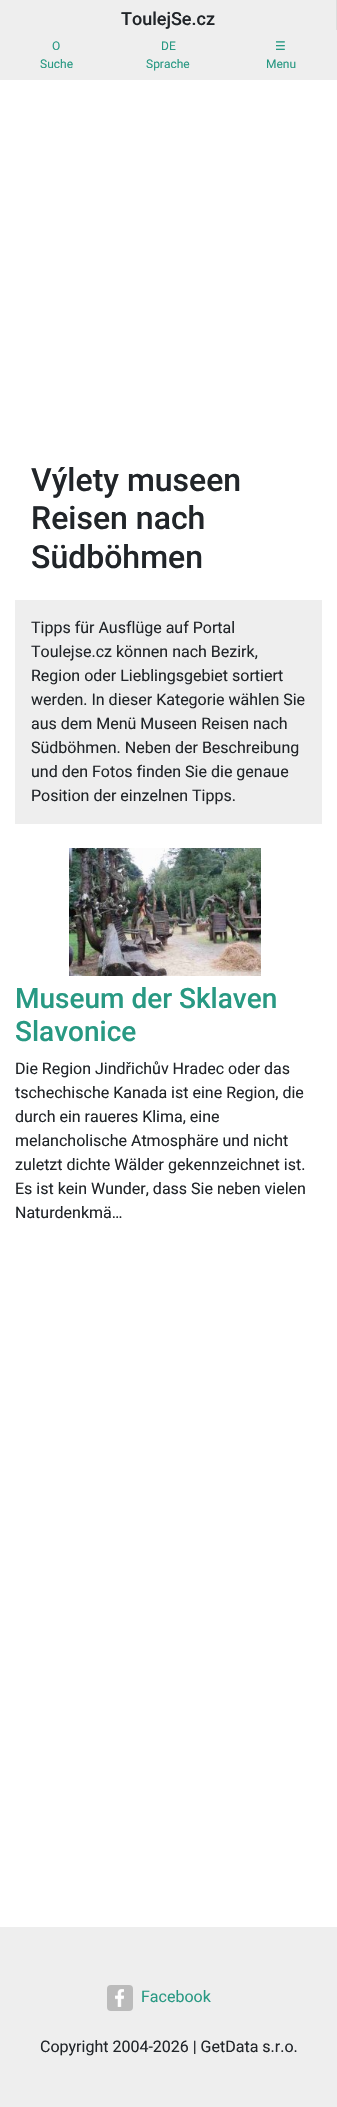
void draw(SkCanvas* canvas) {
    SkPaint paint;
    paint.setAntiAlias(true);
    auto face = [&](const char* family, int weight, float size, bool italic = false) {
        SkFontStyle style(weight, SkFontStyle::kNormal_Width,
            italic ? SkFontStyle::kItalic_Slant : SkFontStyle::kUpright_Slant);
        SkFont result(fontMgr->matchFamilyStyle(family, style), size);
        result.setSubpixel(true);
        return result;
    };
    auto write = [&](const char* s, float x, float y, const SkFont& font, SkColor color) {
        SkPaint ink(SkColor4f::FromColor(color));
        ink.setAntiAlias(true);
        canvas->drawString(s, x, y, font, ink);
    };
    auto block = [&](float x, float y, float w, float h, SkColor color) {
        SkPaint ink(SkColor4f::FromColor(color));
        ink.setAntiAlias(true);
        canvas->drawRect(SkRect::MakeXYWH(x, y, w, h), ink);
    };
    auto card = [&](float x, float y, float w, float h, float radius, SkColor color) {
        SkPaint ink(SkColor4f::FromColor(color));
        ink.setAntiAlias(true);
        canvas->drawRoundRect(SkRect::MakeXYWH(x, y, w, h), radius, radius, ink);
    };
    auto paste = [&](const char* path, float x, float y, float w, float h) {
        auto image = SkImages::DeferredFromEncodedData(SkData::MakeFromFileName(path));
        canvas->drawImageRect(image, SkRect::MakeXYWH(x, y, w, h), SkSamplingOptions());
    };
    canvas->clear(SK_ColorWHITE);
    block(0, 0, 336, 30, SkColorSetRGB(238, 238, 238));
    block(336, 0, 1, 30, SkColorSetRGB(221, 221, 221));
    auto kFont1 = face("Roboto", 500, 18);
    write("ToulejSe.cz", 121, 25, kFont1, SkColorSetRGB(33, 37, 41));
    block(0, 30, 337, 50, SkColorSetRGB(238, 238, 238));
    auto kFont2 = face("Roboto", 400, 12);
    write("O", 52, 50, kFont2, SkColorSetRGB(40, 153, 131));
    write("Suche", 40, 68, kFont2, SkColorSetRGB(40, 153, 131));
    write("DE", 161, 50, kFont2, SkColorSetRGB(40, 153, 131));
    write("Sprache", 146, 68, kFont2, SkColorSetRGB(40, 153, 131));
    auto kFont3 = face("DejaVu Sans", 400, 12);
    write("☰", 275, 50, kFont3, SkColorSetRGB(40, 153, 131));
    write("Menu", 266, 68, kFont2, SkColorSetRGB(40, 153, 131));
    auto kFont4 = face("Roboto", 500, 32);
    write("Výlety museen", 31, 491, kFont4, SkColorSetRGB(33, 37, 41));
    write("Reisen nach", 31, 529, kFont4, SkColorSetRGB(33, 37, 41));
    write("Südböhmen", 31, 568, kFont4, SkColorSetRGB(33, 37, 41));
    block(15, 600, 307, 224, SkColorSetRGB(238, 238, 238));
    auto kFont5 = face("Roboto", 400, 16);
    write("Tipps für Ausflüge auf Portal", 31, 633, kFont5, SkColorSetRGB(33, 37, 41));
    write("Toulejse.cz können nach Bezirk,", 31, 657, kFont5, SkColorSetRGB(33, 37, 41));
    write("Region oder Lieblingsgebiet sortiert", 31, 681, kFont5, SkColorSetRGB(33, 37, 41));
    write("werden. In dieser Kategorie wählen Sie", 31, 705, kFont5, SkColorSetRGB(33, 37, 41));
    write("aus dem Menü Museen Reisen nach", 31, 729, kFont5, SkColorSetRGB(33, 37, 41));
    write("Südböhmen. Neben der Beschreibung", 31, 753, kFont5, SkColorSetRGB(33, 37, 41));
    write("und den Fotos finden Sie die genaue", 31, 777, kFont5, SkColorSetRGB(33, 37, 41));
    write("Position der einzelnen Tipps.", 31, 801, kFont5, SkColorSetRGB(33, 37, 41));
    paste("pic1.png", 69, 848, 192, 128);
    auto kFont6 = face("Roboto", 500, 28);
    write("Museum der Sklaven", 15, 1008, kFont6, SkColorSetRGB(40, 153, 131));
    write("Slavonice", 15, 1041, kFont6, SkColorSetRGB(40, 153, 131));
    write("Die Region Jindřichův Hradec oder das", 15, 1074, kFont5, SkColorSetRGB(33, 37, 41));
    write("tschechische Kanada ist eine Region, die", 15, 1098, kFont5, SkColorSetRGB(33, 37, 41));
    write("durch ein raueres Klima, eine", 15, 1122, kFont5, SkColorSetRGB(33, 37, 41));
    write("melancholische Atmosphäre und nicht", 15, 1146, kFont5, SkColorSetRGB(33, 37, 41));
    write("zuletzt dichte Wälder gekennzeichnet ist.", 15, 1170, kFont5, SkColorSetRGB(33, 37, 41));
    write("Es ist kein Wunder, dass Sie neben vielen", 15, 1194, kFont5, SkColorSetRGB(33, 37, 41));
    write("Naturdenkmä…", 15, 1218, kFont5, SkColorSetRGB(33, 37, 41));
    block(0, 1927, 337, 180, SkColorSetRGB(238, 238, 238));
    card(107, 1985, 26, 26, 4, SkColorSetRGB(187, 187, 187));
    paste("pic2.png", 115, 1989, 9, 18);
    write("Facebook", 141, 2002, kFont5, SkColorSetRGB(40, 153, 131));
    write("Copyright 2004-2026 | GetData s.r.o.", 40, 2052, kFont5, SkColorSetRGB(33, 37, 41));
}
